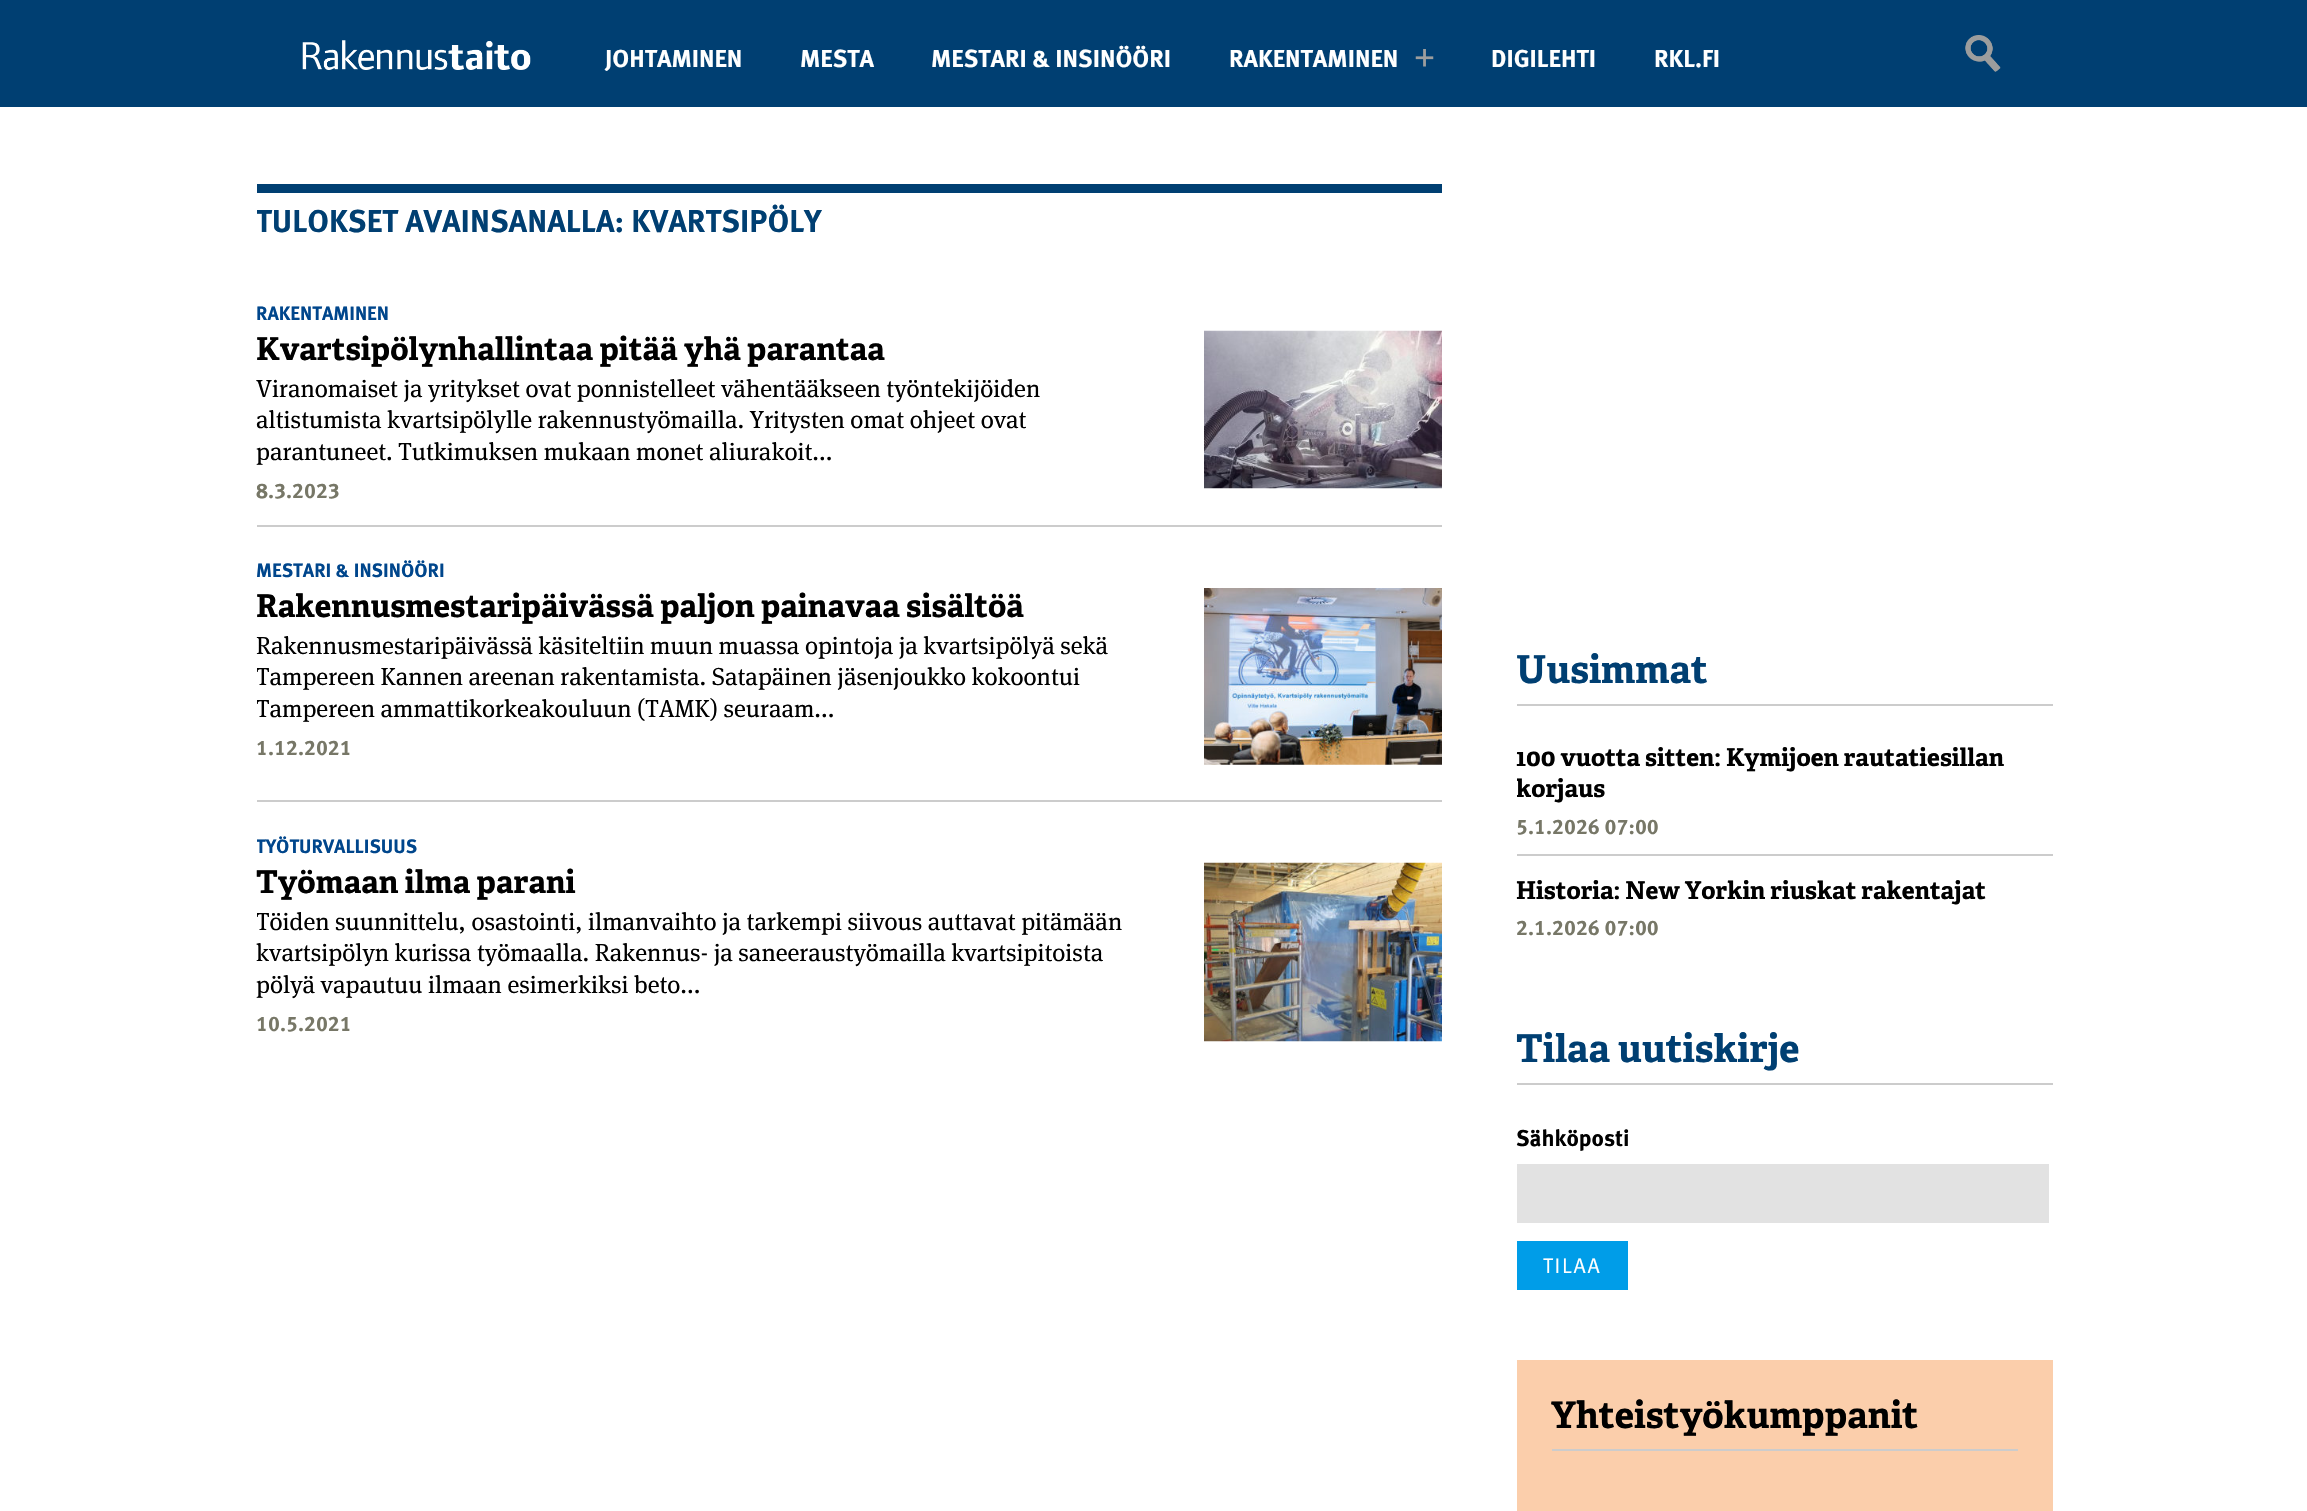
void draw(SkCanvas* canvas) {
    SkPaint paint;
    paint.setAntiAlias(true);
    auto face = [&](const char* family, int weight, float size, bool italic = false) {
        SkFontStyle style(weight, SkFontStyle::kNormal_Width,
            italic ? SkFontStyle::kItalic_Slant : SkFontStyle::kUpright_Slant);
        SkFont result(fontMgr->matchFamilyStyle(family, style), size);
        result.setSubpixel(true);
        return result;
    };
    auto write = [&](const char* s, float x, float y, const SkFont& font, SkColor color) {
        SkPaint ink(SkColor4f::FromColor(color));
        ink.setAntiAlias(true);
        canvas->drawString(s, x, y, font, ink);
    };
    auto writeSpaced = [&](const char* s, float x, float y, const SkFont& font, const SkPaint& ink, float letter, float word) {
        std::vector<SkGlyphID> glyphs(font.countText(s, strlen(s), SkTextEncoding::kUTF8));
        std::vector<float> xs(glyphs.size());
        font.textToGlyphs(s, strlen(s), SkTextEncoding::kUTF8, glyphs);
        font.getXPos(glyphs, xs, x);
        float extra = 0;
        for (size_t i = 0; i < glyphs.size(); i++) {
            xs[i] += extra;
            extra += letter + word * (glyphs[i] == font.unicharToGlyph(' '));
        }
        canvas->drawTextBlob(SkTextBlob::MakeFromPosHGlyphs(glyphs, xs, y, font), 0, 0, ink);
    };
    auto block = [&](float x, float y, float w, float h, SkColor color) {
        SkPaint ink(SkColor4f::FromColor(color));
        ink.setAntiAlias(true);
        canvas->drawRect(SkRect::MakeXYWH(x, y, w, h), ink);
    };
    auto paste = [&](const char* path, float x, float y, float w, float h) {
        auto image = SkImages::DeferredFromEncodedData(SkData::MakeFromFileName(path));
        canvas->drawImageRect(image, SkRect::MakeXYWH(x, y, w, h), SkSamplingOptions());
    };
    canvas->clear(SK_ColorWHITE);
    block(0, 0, 2307, 107, SkColorSetRGB(0, 63, 114));
    paste("pic1.png", 302, 40, 229, 30);
    auto kFont1 = face("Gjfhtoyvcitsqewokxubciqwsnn", 700, 24.5f);
    write("JOHTAMINEN", 605, 67, kFont1, SK_ColorWHITE);
    write("MESTA", 800, 67, kFont1, SK_ColorWHITE);
    write("MESTARI & INSINÖÖRI", 931, 67, kFont1, SK_ColorWHITE);
    paste("pic2.png", 1415, 49, 19, 18);
    write("RAKENTAMINEN", 1229, 67, kFont1, SK_ColorWHITE);
    write("DIGILEHTI", 1491, 67, kFont1, SK_ColorWHITE);
    write("RKL.FI", 1654, 67, kFont1, SK_ColorWHITE);
    paste("pic3.png", 1965, 35, 36, 37);
    block(257, 184, 1185, 9, SkColorSetRGB(0, 63, 114));
    canvas->save();
    canvas->clipRect(SkRect::MakeXYWH(257, 193, 1185, 892));
    auto kFont2 = face("Gjfhtoyvcitsqewokxubciqwsnn", 700, 31.5f);
    write("TULOKSET AVAINSANALLA: KVARTSIPÖLY", 256, 232, kFont2, SkColorSetRGB(0, 63, 114));
    canvas->restore();
    block(257, 525, 1185, 2, SkColorSetRGB(204, 204, 204));
    auto kFont3 = face("Gjfhtoyvcitsqewokxubciqwsnn", 700, 19.25f);
    write("RAKENTAMINEN", 256, 320, kFont3, SkColorSetRGB(0, 70, 140));
    auto kFont4 = face("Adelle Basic", 700, 31.5f);
    write("Kvartsipölynhallintaa pitää yhä parantaa", 256, 360, kFont4, SK_ColorBLACK);
    paste("pic4.png", 1204, 330, 238, 159);
    auto kFont5 = face("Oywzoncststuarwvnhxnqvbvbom", 500, 24.5f);
    write("Viranomaiset ja yritykset ovat ponnistelleet vähentääkseen työntekijöiden", 256, 397, kFont5, SK_ColorBLACK);
    write("altistumista kvartsipölylle rakennustyömailla. Yritysten omat ohjeet ovat", 256, 428, kFont5, SK_ColorBLACK);
    write("parantuneet. Tutkimuksen mukaan monet aliurakoit...", 256, 460, kFont5, SK_ColorBLACK);
    auto kFont6 = face("Gjfhtoyvcitsqewokxubciqwsnn", 700, 21);
    write("8.3.2023", 256, 498, kFont6, SkColorSetRGB(119, 119, 103));
    block(257, 800, 1185, 2, SkColorSetRGB(204, 204, 204));
    write("MESTARI & INSINÖÖRI", 256, 577, kFont3, SkColorSetRGB(0, 70, 140));
    write("Rakennusmestaripäivässä paljon painavaa sisältöä", 256, 617, kFont4, SK_ColorBLACK);
    paste("pic5.png", 1204, 588, 238, 177);
    write("Rakennusmestaripäivässä käsiteltiin muun muassa opintoja ja kvartsipölyä sekä", 256, 654, kFont5, SK_ColorBLACK);
    canvas->save();
    canvas->clipRect(SkRect::MakeXYWH(257, 527, 1185, 273));
    write("Tampereen Kannen areenan rakentamista. Satapäinen jäsenjoukko kokoontui", 256, 685, kFont5, SK_ColorBLACK);
    write("Tampereen ammattikorkeakouluun (TAMK) seuraam...", 256, 717, kFont5, SK_ColorBLACK);
    canvas->restore();
    write("1.12.2021", 256, 755, kFont6, SkColorSetRGB(119, 119, 103));
    canvas->save();
    canvas->clipRect(SkRect::MakeXYWH(257, 802, 1185, 274));
    write("TYÖTURVALLISUUS", 256, 853, kFont3, SkColorSetRGB(0, 70, 140));
    canvas->restore();
    write("Työmaan ilma parani", 256, 893, kFont4, SK_ColorBLACK);
    paste("pic6.png", 1204, 862, 238, 180);
    canvas->save();
    canvas->clipRect(SkRect::MakeXYWH(257, 802, 1185, 274));
    write("Töiden suunnittelu, osastointi, ilmanvaihto ja tarkempi siivous auttavat pitämään", 256, 930, kFont5, SK_ColorBLACK);
    canvas->restore();
    write("kvartsipölyn kurissa työmaalla. Rakennus- ja saneeraustyömailla kvartsipitoista", 256, 961, kFont5, SK_ColorBLACK);
    write("pölyä vapautuu ilmaan esimerkiksi beto...", 256, 993, kFont5, SK_ColorBLACK);
    write("10.5.2021", 256, 1031, kFont6, SkColorSetRGB(119, 119, 103));
    block(1517, 704, 536, 2, SkColorSetRGB(204, 204, 204));
    auto kFont7 = face("Adelle Basic", 700, 38.5f);
    write("Uusimmat", 1516, 683, kFont7, SkColorSetRGB(0, 63, 114));
    block(1517, 854, 536, 2, SkColorSetRGB(204, 204, 204));
    auto kFont8 = face("Adelle Basic", 700, 24.5f);
    write("100 vuotta sitten: Kymijoen rautatiesillan", 1516, 766, kFont8, SK_ColorBLACK);
    canvas->save();
    canvas->clipRect(SkRect::MakeXYWH(1517, 723, 536, 131));
    write("korjaus", 1516, 797, kFont8, SK_ColorBLACK);
    canvas->restore();
    write("5.1.2026 07:00", 1516, 834, kFont6, SkColorSetRGB(119, 119, 103));
    write("Historia: New Yorkin riuskat rakentajat", 1516, 899, kFont8, SK_ColorBLACK);
    write("2.1.2026 07:00", 1516, 935, kFont6, SkColorSetRGB(119, 119, 103));
    block(1517, 1083, 536, 2, SkColorSetRGB(204, 204, 204));
    write("Tilaa uutiskirje", 1516, 1062, kFont7, SkColorSetRGB(0, 63, 114));
    auto kFont9 = face("Gjfhtoyvcitsqewokxubciqwsnn", 700, 22.75f);
    write("Sähköposti", 1516, 1146, kFont9, SK_ColorBLACK);
    block(1517, 1164, 532, 59, SkColorSetRGB(226, 226, 226));
    block(1517, 1241, 111, 49, SkColorSetRGB(0, 157, 232));
    auto kFont10 = face("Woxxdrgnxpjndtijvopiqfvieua", 400, 21);
    paint.setColor(SK_ColorWHITE);
    writeSpaced("TILAA", 1543, 1273, kFont10, paint, 1.75f, 0);
    block(1517, 1360, 536, 151, SkColorSetRGB(251, 206, 171));
    block(1552, 1449, 466, 2, SkColorSetRGB(204, 204, 204));
    auto kFont11 = face("Adelle Basic", 700, 36.75f);
    write("Yhteistyökumppanit", 1551, 1428, kFont11, SK_ColorBLACK);
}
